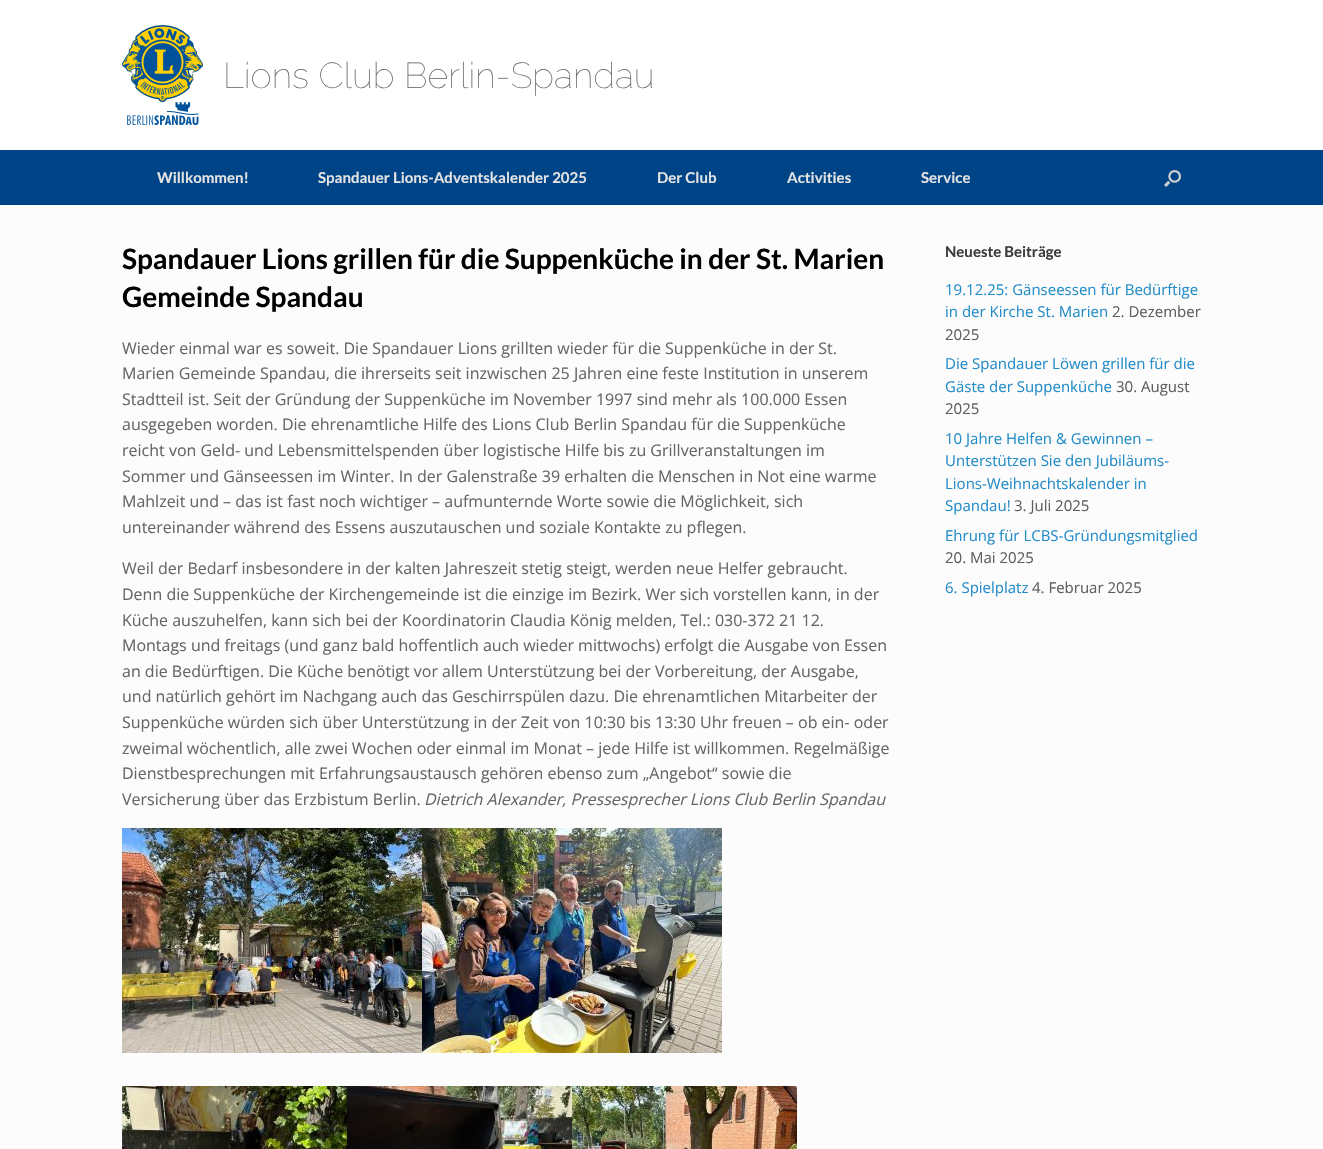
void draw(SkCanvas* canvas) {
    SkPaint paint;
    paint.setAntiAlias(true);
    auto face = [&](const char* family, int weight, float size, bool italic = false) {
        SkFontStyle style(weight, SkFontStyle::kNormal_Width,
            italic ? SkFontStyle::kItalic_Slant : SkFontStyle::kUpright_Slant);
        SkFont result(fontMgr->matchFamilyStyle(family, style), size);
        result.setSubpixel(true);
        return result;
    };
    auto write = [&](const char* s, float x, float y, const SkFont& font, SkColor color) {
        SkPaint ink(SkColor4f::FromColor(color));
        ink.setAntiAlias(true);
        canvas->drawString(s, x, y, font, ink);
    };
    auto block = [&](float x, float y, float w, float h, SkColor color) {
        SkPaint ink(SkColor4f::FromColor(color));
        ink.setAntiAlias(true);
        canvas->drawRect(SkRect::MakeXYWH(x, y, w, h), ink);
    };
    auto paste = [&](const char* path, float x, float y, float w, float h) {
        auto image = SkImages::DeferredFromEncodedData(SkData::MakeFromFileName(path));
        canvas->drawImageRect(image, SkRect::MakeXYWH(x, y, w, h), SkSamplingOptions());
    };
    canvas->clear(SK_ColorWHITE);
    paste("pic1.png", 122, 25, 81, 100);
    auto kFont1 = face("Raleway", 100, 36);
    write("Lions Club Berlin-Spandau", 223, 88, kFont1, SkColorSetRGB(102, 102, 102));
    block(0, 150, 1323, 55, SkColorSetRGB(0, 68, 136));
    auto kFont2 = face("Lato", 700, 15);
    write("Willkommen!", 157, 183, kFont2, SkColorSetRGB(226, 226, 226));
    write("Spandauer Lions-Adventskalender 2025", 318, 183, kFont2, SkColorSetRGB(226, 226, 226));
    write("Der Club", 657, 183, kFont2, SkColorSetRGB(226, 226, 226));
    write("Activities", 787, 183, kFont2, SkColorSetRGB(226, 226, 226));
    write("Service", 921, 183, kFont2, SkColorSetRGB(226, 226, 226));
    paste("pic2.png", 1164, 170, 17, 17);
    block(0, 205, 1323, 944, SkColorSetRGB(252, 252, 252));
    auto kFont3 = face("Lato", 700, 28);
    write("Spandauer Lions grillen für die Suppenküche in der St. Marien", 122, 269, kFont3, SK_ColorBLACK);
    write("Gemeinde Spandau", 122, 307, kFont3, SK_ColorBLACK);
    auto kFont4 = face("Open Sans", 400, 16);
    write("Wieder einmal war es soweit. Die Spandauer Lions grillten wieder für die Suppenküche in der St.", 122, 354, kFont4, SkColorSetRGB(102, 102, 102));
    write("Marien Gemeinde Spandau, die ihrerseits seit inzwischen 25 Jahren eine feste Institution in unserem", 122, 379, kFont4, SkColorSetRGB(102, 102, 102));
    write("Stadtteil ist. Seit der Gründung der Suppenküche im November 1997 sind mehr als 100.000 Essen", 122, 405, kFont4, SkColorSetRGB(102, 102, 102));
    write("ausgegeben worden. Die ehrenamtliche Hilfe des Lions Club Berlin Spandau für die Suppenküche", 122, 430, kFont4, SkColorSetRGB(102, 102, 102));
    write("reicht von Geld- und Lebensmittelspenden über logistische Hilfe bis zu Grillveranstaltungen im", 122, 456, kFont4, SkColorSetRGB(102, 102, 102));
    write("Sommer und Gänseessen im Winter. In der Galenstraße 39 erhalten die Menschen in Not eine warme", 122, 482, kFont4, SkColorSetRGB(102, 102, 102));
    write("Mahlzeit und – das ist fast noch wichtiger – aufmunternde Worte sowie die Möglichkeit, sich", 122, 507, kFont4, SkColorSetRGB(102, 102, 102));
    write("untereinander während des Essens auszutauschen und soziale Kontakte zu pflegen.", 122, 533, kFont4, SkColorSetRGB(102, 102, 102));
    write("Weil der Bedarf insbesondere in der kalten Jahreszeit stetig steigt, werden neue Helfer gebraucht.", 122, 574, kFont4, SkColorSetRGB(102, 102, 102));
    write("Denn die Suppenküche der Kirchengemeinde ist die einzige im Bezirk. Wer sich vorstellen kann, in der", 122, 600, kFont4, SkColorSetRGB(102, 102, 102));
    write("Küche auszuhelfen, kann sich bei der Koordinatorin Claudia König melden, Tel.: 030-372 21 12.", 122, 626, kFont4, SkColorSetRGB(102, 102, 102));
    write("Montags und freitags (und ganz bald hoffentlich auch wieder mittwochs) erfolgt die Ausgabe von Essen", 122, 651, kFont4, SkColorSetRGB(102, 102, 102));
    write("an die Bedürftigen. Die Küche benötigt vor allem Unterstützung bei der Vorbereitung, der Ausgabe,", 122, 677, kFont4, SkColorSetRGB(102, 102, 102));
    write("und natürlich gehört im Nachgang auch das Geschirrspülen dazu. Die ehrenamtlichen Mitarbeiter der", 122, 702, kFont4, SkColorSetRGB(102, 102, 102));
    write("Suppenküche würden sich über Unterstützung in der Zeit von 10:30 bis 13:30 Uhr freuen – ob ein- oder", 122, 728, kFont4, SkColorSetRGB(102, 102, 102));
    write("zweimal wöchentlich, alle zwei Wochen oder einmal im Monat – jede Hilfe ist willkommen. Regelmäßige", 122, 754, kFont4, SkColorSetRGB(102, 102, 102));
    write("Dienstbesprechungen mit Erfahrungsaustausch gehören ebenso zum „Angebot“ sowie die", 122, 779, kFont4, SkColorSetRGB(102, 102, 102));
    write("Versicherung über das Erzbistum Berlin.", 122, 805, kFont4, SkColorSetRGB(102, 102, 102));
    auto kFont5 = face("Open Sans", 400, 16, true);
    write("Dietrich Alexander, Pressesprecher Lions Club Berlin Spandau", 424, 805, kFont5, SkColorSetRGB(102, 102, 102));
    paste("pic3.png", 122, 828, 300, 225);
    paste("pic4.png", 422, 828, 300, 225);
    paste("pic5.png", 122, 1086, 225, 63);
    paste("pic6.png", 347, 1086, 225, 63);
    paste("pic7.png", 572, 1086, 225, 63);
    write("Neueste Beiträge", 945, 257, kFont2, SkColorSetRGB(59, 59, 59));
    auto kFont6 = face("Open Sans", 400, 15);
    write("19.12.25: Gänseessen für Bedürftige", 945, 295, kFont6, SkColorSetRGB(36, 140, 200));
    write("in der Kirche St. Marien", 945, 317, kFont6, SkColorSetRGB(36, 140, 200));
    write("2. Dezember", 1112, 317, kFont6, SkColorSetRGB(94, 94, 94));
    write("2025", 945, 340, kFont6, SkColorSetRGB(94, 94, 94));
    write("Die Spandauer Löwen grillen für die", 945, 369, kFont6, SkColorSetRGB(36, 140, 200));
    write("Gäste der Suppenküche", 945, 392, kFont6, SkColorSetRGB(36, 140, 200));
    write("30. August", 1116, 392, kFont6, SkColorSetRGB(94, 94, 94));
    write("2025", 945, 414, kFont6, SkColorSetRGB(94, 94, 94));
    write("10 Jahre Helfen & Gewinnen –", 945, 444, kFont6, SkColorSetRGB(36, 140, 200));
    write("Unterstützen Sie den Jubiläums-", 945, 466, kFont6, SkColorSetRGB(36, 140, 200));
    write("Lions-Weihnachtskalender in", 945, 489, kFont6, SkColorSetRGB(36, 140, 200));
    write("Spandau!", 945, 511, kFont6, SkColorSetRGB(36, 140, 200));
    write("3. Juli 2025", 1014, 511, kFont6, SkColorSetRGB(94, 94, 94));
    write("Ehrung für LCBS-Gründungsmitglied", 945, 541, kFont6, SkColorSetRGB(36, 140, 200));
    write("20. Mai 2025", 945, 563, kFont6, SkColorSetRGB(94, 94, 94));
    write("6. Spielplatz", 945, 593, kFont6, SkColorSetRGB(36, 140, 200));
    write("4. Februar 2025", 1032, 593, kFont6, SkColorSetRGB(94, 94, 94));
}
